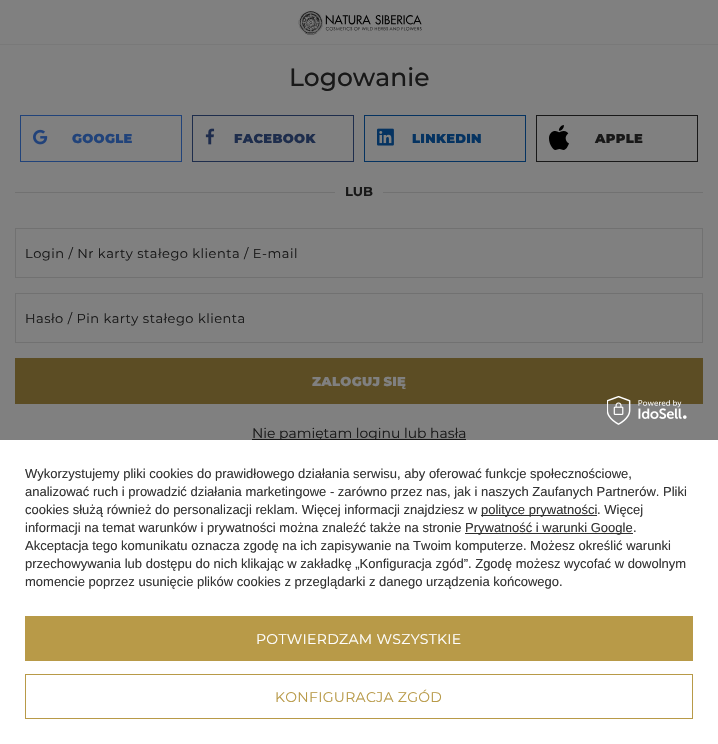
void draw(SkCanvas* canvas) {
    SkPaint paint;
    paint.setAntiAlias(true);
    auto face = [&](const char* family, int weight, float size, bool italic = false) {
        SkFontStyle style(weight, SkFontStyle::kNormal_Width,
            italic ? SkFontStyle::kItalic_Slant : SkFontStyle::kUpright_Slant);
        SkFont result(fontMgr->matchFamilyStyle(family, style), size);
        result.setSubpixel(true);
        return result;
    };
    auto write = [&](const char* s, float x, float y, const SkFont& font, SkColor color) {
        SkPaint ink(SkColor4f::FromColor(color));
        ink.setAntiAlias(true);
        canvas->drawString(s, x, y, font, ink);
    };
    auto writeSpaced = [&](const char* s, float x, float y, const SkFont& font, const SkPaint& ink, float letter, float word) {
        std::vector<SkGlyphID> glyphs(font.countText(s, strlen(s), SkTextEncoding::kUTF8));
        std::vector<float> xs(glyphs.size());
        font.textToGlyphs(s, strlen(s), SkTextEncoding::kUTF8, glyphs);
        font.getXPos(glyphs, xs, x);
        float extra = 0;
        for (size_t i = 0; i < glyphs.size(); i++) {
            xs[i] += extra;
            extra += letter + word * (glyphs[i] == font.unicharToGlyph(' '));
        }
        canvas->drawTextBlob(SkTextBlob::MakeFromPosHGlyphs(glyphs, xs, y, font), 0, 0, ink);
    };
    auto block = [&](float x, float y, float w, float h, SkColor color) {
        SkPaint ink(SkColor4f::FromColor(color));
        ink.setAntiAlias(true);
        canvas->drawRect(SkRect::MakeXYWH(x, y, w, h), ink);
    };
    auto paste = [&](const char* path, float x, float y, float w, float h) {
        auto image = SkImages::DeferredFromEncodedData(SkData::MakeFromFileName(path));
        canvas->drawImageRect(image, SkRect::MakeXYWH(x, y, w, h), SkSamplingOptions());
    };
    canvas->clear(SkColorSetRGB(128, 128, 128));
    block(0, 44, 718, 1, SkColorSetRGB(121, 121, 121));
    paste("pic1.png", 298, 11, 124, 24);
    auto kFont1 = face("Montserrat", 500, 25);
    write("Logowanie", 289, 86, kFont1, SkColorSetRGB(24, 24, 24));
    paint.setStyle(SkPaint::kStroke_Style);
    paint.setStrokeWidth(1);
    paint.setColor(SkColorSetRGB(33, 67, 122));
    canvas->drawRect(SkRect::MakeXYWH(20.5f, 115.5f, 161, 46), paint);
    paste("pic2.png", 33, 129, 15, 16);
    auto kFont2 = face("Montserrat", 900, 13);
    paint.setStyle(SkPaint::kFill_Style);
    writeSpaced("GOOGLE", 72, 143, kFont2, paint, 0.3f, 0);
    paint.setStyle(SkPaint::kStroke_Style);
    paint.setColor(SkColorSetRGB(30, 45, 76));
    canvas->drawRect(SkRect::MakeXYWH(192.5f, 115.5f, 161, 46), paint);
    paste("pic3.png", 205, 128, 10, 17);
    paint.setStyle(SkPaint::kFill_Style);
    writeSpaced("FACEBOOK", 234, 143, kFont2, paint, 0.3f, 0);
    paint.setStyle(SkPaint::kStroke_Style);
    paint.setColor(SkColorSetRGB(5, 51, 97));
    canvas->drawRect(SkRect::MakeXYWH(364.5f, 115.5f, 161, 46), paint);
    paste("pic4.png", 377, 128, 17, 18);
    paint.setStyle(SkPaint::kFill_Style);
    writeSpaced("LINKEDIN", 412, 143, kFont2, paint, 0.3f, 0);
    paint.setStyle(SkPaint::kStroke_Style);
    paint.setColor(SkColorSetRGB(24, 24, 24));
    canvas->drawRect(SkRect::MakeXYWH(536.5f, 115.5f, 161, 46), paint);
    paste("pic5.png", 549, 125, 20, 25);
    paint.setStyle(SkPaint::kFill_Style);
    writeSpaced("APPLE", 595, 143, kFont2, paint, 0.3f, 0);
    block(15, 192, 688, 1, SkColorSetRGB(113, 113, 113));
    block(335, 192, 48, 1, SkColorSetRGB(128, 128, 128));
    auto kFont3 = face("Montserrat", 700, 13);
    write("LUB", 345, 196, kFont3, SkColorSetRGB(24, 24, 24));
    paint.setStyle(SkPaint::kStroke_Style);
    paint.setColor(SkColorSetRGB(113, 113, 113));
    canvas->drawRect(SkRect::MakeXYWH(15.5f, 228.5f, 687, 49), paint);
    auto kFont4 = face("Montserrat", 400, 13);
    paint.setStyle(SkPaint::kFill_Style);
    paint.setColor(SkColorSetRGB(24, 24, 24));
    writeSpaced("Login / Nr karty stałego klienta / E-mail", 25, 258, kFont4, paint, 0.5f, 0);
    paint.setStyle(SkPaint::kStroke_Style);
    paint.setColor(SkColorSetRGB(113, 113, 113));
    canvas->drawRect(SkRect::MakeXYWH(15.5f, 293.5f, 687, 49), paint);
    paint.setStyle(SkPaint::kFill_Style);
    paint.setColor(SkColorSetRGB(24, 24, 24));
    writeSpaced("Hasło / Pin karty stałego klienta", 25, 323, kFont4, paint, 0.5f, 0);
    block(15, 358, 688, 46, SkColorSetRGB(92, 77, 36));
    paint.setColor(SkColorSetRGB(128, 128, 128));
    writeSpaced("ZALOGUJ SIĘ", 312, 386, kFont2, paint, 0.3f, -1);
    block(252, 439, 214, 1, SkColorSetRGB(24, 24, 24));
    auto kFont5 = face("Montserrat", 400, 13.9f);
    write("Nie pamiętam loginu lub hasła", 252, 438, kFont5, SkColorSetRGB(24, 24, 24));
    block(0, 440, 718, 304, SK_ColorWHITE);
    paste("pic6.png", 607, 396, 80, 29);
    auto kFont6 = face("Liberation Sans", 400, 13);
    write("Wykorzystujemy pliki cookies do prawidłowego działania serwisu, aby oferować funkcje społecznościowe,", 25, 478, kFont6, SkColorSetRGB(51, 51, 51));
    write("analizować ruch i prowadzić działania marketingowe - zarówno przez nas, jak i naszych Zaufanych Partnerów. Pliki", 25, 496, kFont6, SkColorSetRGB(51, 51, 51));
    write("cookies służą również do personalizacji reklam. Więcej informacji znajdziesz w", 25, 514, kFont6, SkColorSetRGB(51, 51, 51));
    block(481, 515, 116, 1, SkColorSetRGB(47, 47, 47));
    write("polityce prywatności", 481, 514, kFont6, SkColorSetRGB(51, 51, 51));
    write(". Więcej", 597, 514, kFont6, SkColorSetRGB(51, 51, 51));
    write("informacji na temat warunków i prywatności można znaleźć także na stronie", 25, 532, kFont6, SkColorSetRGB(51, 51, 51));
    block(465, 533, 168, 1, SkColorSetRGB(47, 47, 47));
    write("Prywatność i warunki Google", 465, 532, kFont6, SkColorSetRGB(51, 51, 51));
    write(".", 633, 532, kFont6, SkColorSetRGB(51, 51, 51));
    write("Akceptacja tego komunikatu oznacza zgodę na ich zapisywanie na Twoim komputerze. Możesz określić warunki", 25, 550, kFont6, SkColorSetRGB(51, 51, 51));
    write("przechowywania lub dostępu do nich klikając w zakładkę „Konfiguracja zgód”. Zgodę możesz wycofać w dowolnym", 25, 568, kFont6, SkColorSetRGB(51, 51, 51));
    write("momencie poprzez usunięcie plików cookies z przeglądarki z danego urządzenia końcowego.", 25, 586, kFont6, SkColorSetRGB(51, 51, 51));
    block(25, 616, 668, 45, SkColorSetRGB(184, 154, 72));
    auto kFont7 = face("Montserrat", 400, 14);
    paint.setColor(SK_ColorWHITE);
    writeSpaced("POTWIERDZAM WSZYSTKIE", 256, 644, kFont7, paint, 0.3f, 0);
    paint.setStyle(SkPaint::kStroke_Style);
    paint.setColor(SkColorSetRGB(184, 154, 72));
    canvas->drawRect(SkRect::MakeXYWH(25.5f, 674.5f, 667, 44), paint);
    paint.setStyle(SkPaint::kFill_Style);
    writeSpaced("KONFIGURACJA ZGÓD", 275, 702, kFont7, paint, 0.3f, 0);
}
